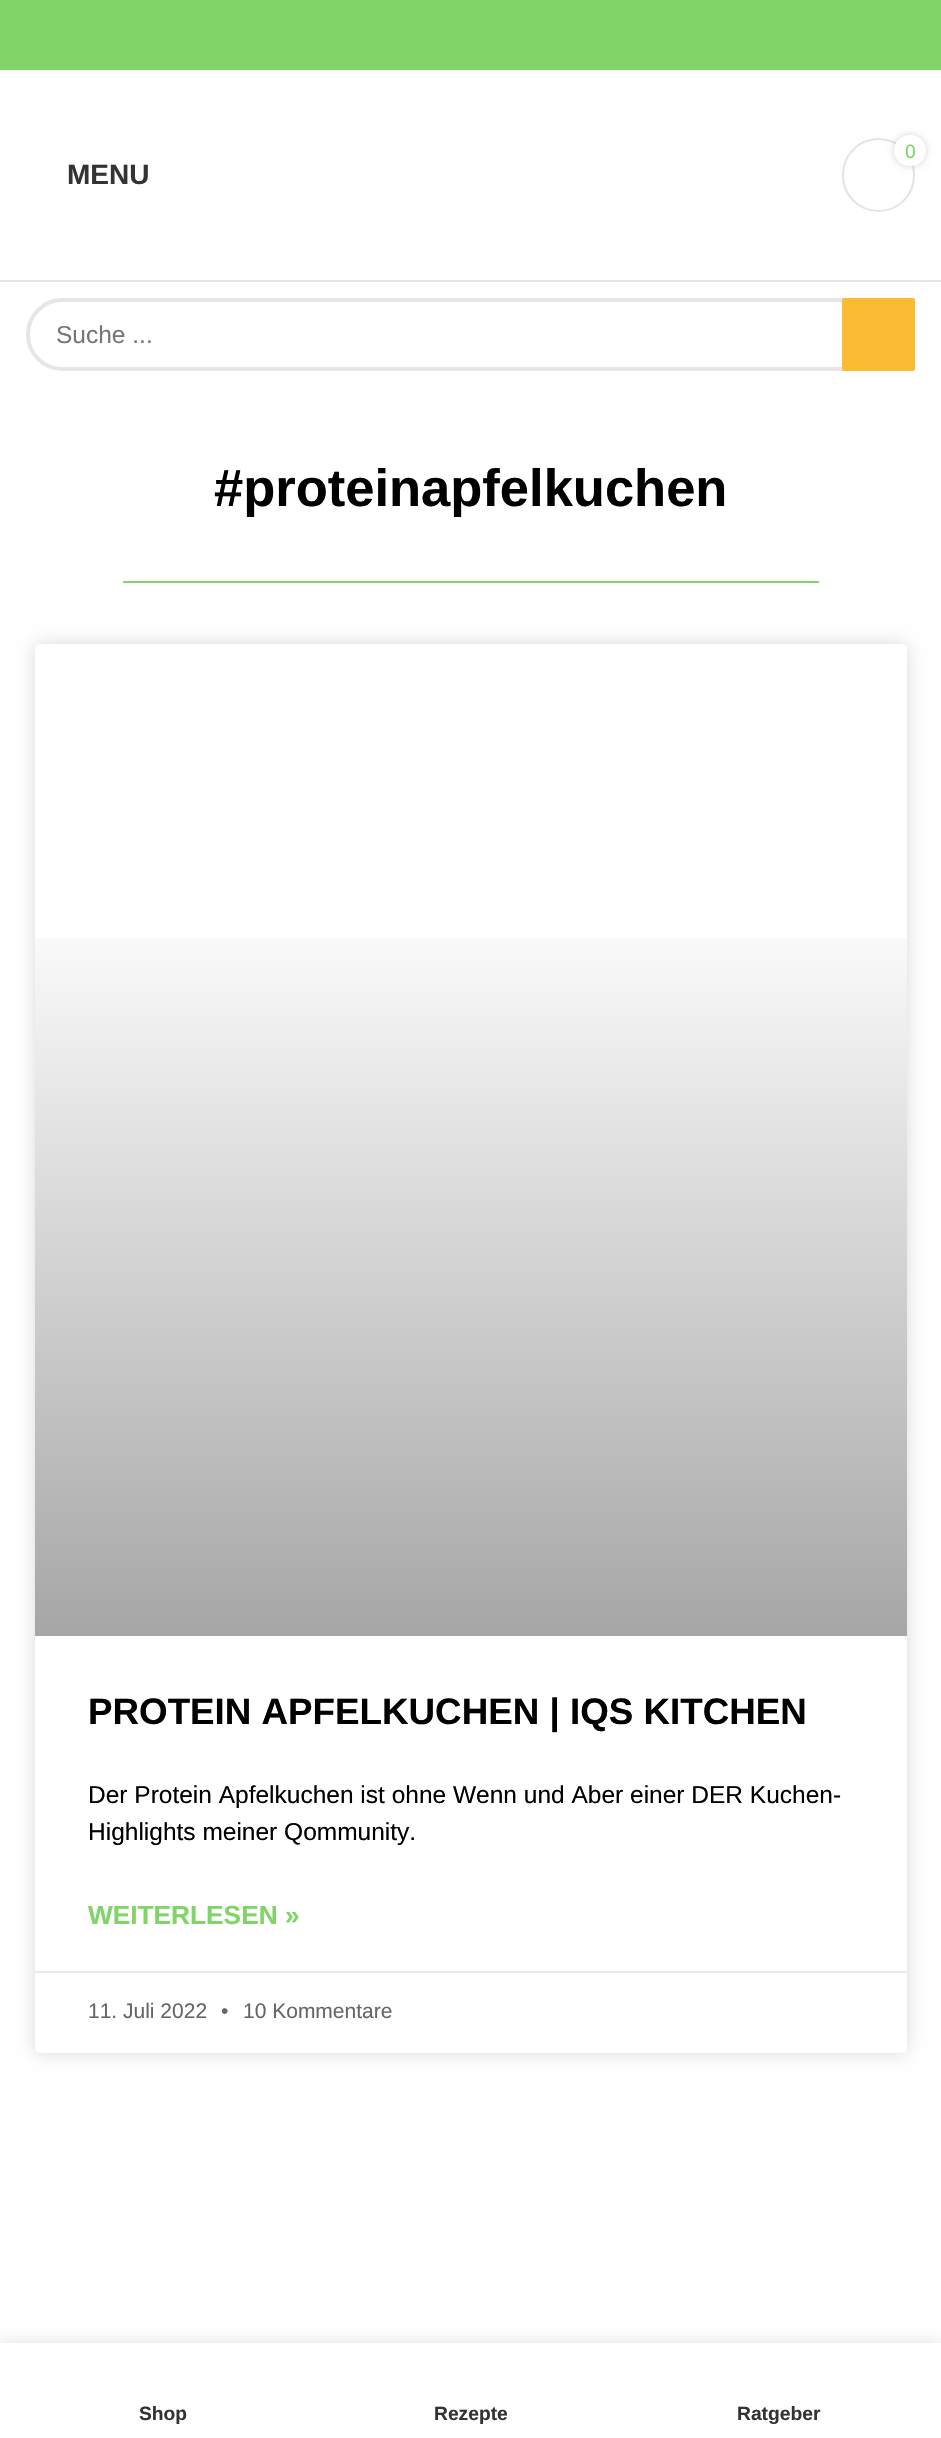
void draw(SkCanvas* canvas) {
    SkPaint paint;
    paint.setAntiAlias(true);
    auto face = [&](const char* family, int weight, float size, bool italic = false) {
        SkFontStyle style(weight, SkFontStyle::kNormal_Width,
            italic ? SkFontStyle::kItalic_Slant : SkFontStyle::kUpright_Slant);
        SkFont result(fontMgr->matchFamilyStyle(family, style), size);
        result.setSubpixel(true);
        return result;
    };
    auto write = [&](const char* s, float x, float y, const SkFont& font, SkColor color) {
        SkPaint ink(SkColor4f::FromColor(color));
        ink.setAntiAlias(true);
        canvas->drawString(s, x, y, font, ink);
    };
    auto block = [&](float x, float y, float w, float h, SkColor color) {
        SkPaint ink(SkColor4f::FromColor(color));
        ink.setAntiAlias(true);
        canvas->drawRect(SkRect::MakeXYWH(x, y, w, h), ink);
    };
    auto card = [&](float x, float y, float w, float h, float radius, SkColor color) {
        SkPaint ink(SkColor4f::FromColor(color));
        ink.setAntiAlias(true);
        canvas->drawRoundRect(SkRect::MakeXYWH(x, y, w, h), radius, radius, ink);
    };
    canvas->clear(SK_ColorWHITE);
    block(0, 0, 941, 70, SkColorSetRGB(128, 212, 104));
    block(0, 280, 941, 2, SkColorSetRGB(230, 230, 230));
    paint.setStyle(SkPaint::kStroke_Style);
    paint.setStrokeWidth(2);
    paint.setColor(SkColorSetRGB(228, 228, 228));
    canvas->drawRoundRect(SkRect::MakeXYWH(843, 139, 71, 72), 35.5f, 35.5f, paint);
    paint.setStyle(SkPaint::kFill_Style);
    paint.setColor(SkColorSetARGB(43, 0, 0, 0));
    paint.setMaskFilter(SkMaskFilter::MakeBlur(kNormal_SkBlurStyle, 3.5f));
    canvas->drawRoundRect(SkRect::MakeXYWH(894, 135, 32, 31), 15.5f, 15.5f, paint);
    paint.setMaskFilter(nullptr);
    card(894, 135, 32, 31, 15.5f, SK_ColorWHITE);
    auto kFont1 = face("Liberation Sans", 400, 19.25f);
    write("0", 905, 158, kFont1, SkColorSetRGB(128, 212, 104));
    auto kFont2 = face("Liberation Sans", 700, 28);
    write("MENU", 67, 184, kFont2, SkColorSetRGB(51, 51, 51));
    paint.setStyle(SkPaint::kStroke_Style);
    paint.setStrokeWidth(4);
    paint.setColor(SkColorSetRGB(230, 230, 230));
    canvas->drawRoundRect(SkRect::MakeXYWH(28, 300, 885, 69), 34.5f, 34.5f, paint);
    auto kFont3 = face("Liberation Sans", 400, 24.5f);
    write("Suche ...", 56, 343, kFont3, SkColorSetRGB(118, 118, 118));
    card(842, 298, 73, 73, 2, SkColorSetRGB(251, 188, 52));
    auto kFont4 = face("Liberation Sans", 700, 52.5f);
    write("#proteinapfelkuchen", 214, 506, kFont4, SK_ColorBLACK);
    block(123, 581, 696, 2, SkColorSetRGB(128, 212, 104));
    paint.setStyle(SkPaint::kFill_Style);
    paint.setColor(SkColorSetARGB(38, 0, 0, 0));
    paint.setMaskFilter(SkMaskFilter::MakeBlur(kNormal_SkBlurStyle, 9));
    canvas->drawRoundRect(SkRect::MakeXYWH(35, 644, 872, 1409), 5, 5, paint);
    paint.setMaskFilter(nullptr);
    card(35, 644, 872, 1409, 5, SK_ColorWHITE);
    {
        const SkColor colors[] = {SkColorSetARGB(89, 0, 0, 0), SkColorSetARGB(0, 0, 0, 0)};
        const float stops[] = {0, 0.75f};
        const SkPoint ends[] = {{471, 1636}, {471, 644}};
        paint.setShader(SkGradientShader::MakeLinear(ends, colors, stops, 2, SkTileMode::kClamp));
        paint.setAlpha(255);
    }
    canvas->drawRect(SkRect::MakeXYWH(35, 938, 872, 698), paint);
    auto kFont5 = face("Liberation Sans", 700, 36.75f);
    write("PROTEIN APFELKUCHEN | IQS KITCHEN", 88, 1724, kFont5, SK_ColorBLACK);
    write("Der Protein Apfelkuchen ist ohne Wenn und Aber einer DER Kuchen-", 88, 1803, kFont3, SK_ColorBLACK);
    write("Highlights meiner Qommunity.", 88, 1840, kFont3, SK_ColorBLACK);
    auto kFont6 = face("Liberation Sans", 700, 26.25f);
    write("WEITERLESEN »", 88, 1924, kFont6, SkColorSetRGB(128, 212, 104));
    block(35, 1971, 872, 2, SkColorSetRGB(234, 234, 234));
    auto kFont7 = face("Liberation Sans", 400, 21);
    write("11. Juli 2022", 88, 2018, kFont7, SkColorSetRGB(102, 102, 102));
    write("•", 221, 2018, kFont7, SkColorSetRGB(102, 102, 102));
    write("10 Kommentare", 243, 2018, kFont7, SkColorSetRGB(102, 102, 102));
    paint.setShader(nullptr);
    paint.setColor(SkColorSetARGB(31, 0, 0, 0));
    paint.setMaskFilter(SkMaskFilter::MakeBlur(kNormal_SkBlurStyle, 8));
    canvas->drawRect(SkRect::MakeXYWH(0, 2343, 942, 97), paint);
    paint.setMaskFilter(nullptr);
    block(0, 2343, 941, 95, SK_ColorWHITE);
    auto kFont8 = face("Liberation Sans", 700, 19.25f);
    write("Shop", 139, 2420, kFont8, SkColorSetRGB(51, 51, 51));
    write("Rezepte", 434, 2420, kFont8, SkColorSetRGB(51, 51, 51));
    write("Ratgeber", 737, 2420, kFont8, SkColorSetRGB(51, 51, 51));
}
